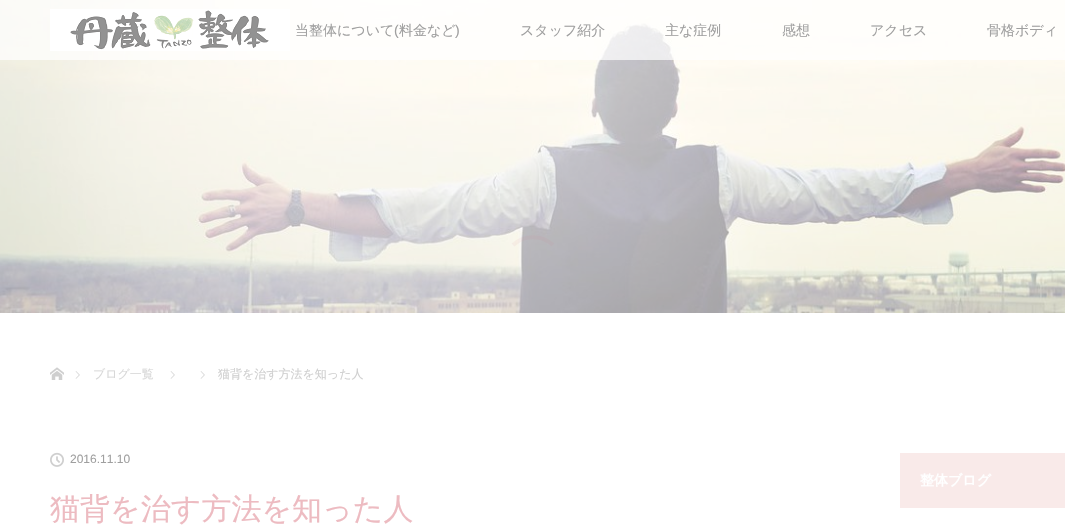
void draw(SkCanvas* canvas) {
    SkPaint paint;
    paint.setAntiAlias(true);
    auto face = [&](const char* family, int weight, float size, bool italic = false) {
        SkFontStyle style(weight, SkFontStyle::kNormal_Width,
            italic ? SkFontStyle::kItalic_Slant : SkFontStyle::kUpright_Slant);
        SkFont result(fontMgr->matchFamilyStyle(family, style), size);
        result.setSubpixel(true);
        return result;
    };
    auto write = [&](const char* s, float x, float y, const SkFont& font, SkColor color) {
        SkPaint ink(SkColor4f::FromColor(color));
        ink.setAntiAlias(true);
        canvas->drawString(s, x, y, font, ink);
    };
    auto block = [&](float x, float y, float w, float h, SkColor color) {
        SkPaint ink(SkColor4f::FromColor(color));
        ink.setAntiAlias(true);
        canvas->drawRect(SkRect::MakeXYWH(x, y, w, h), ink);
    };
    auto paste = [&](const char* path, float x, float y, float w, float h) {
        auto image = SkImages::DeferredFromEncodedData(SkData::MakeFromFileName(path));
        canvas->drawImageRect(image, SkRect::MakeXYWH(x, y, w, h), SkSamplingOptions());
    };
    canvas->clear(SK_ColorWHITE);
    paste("pic2.png", 0, 0, 1065, 313);
    block(0, 0, 1065, 60, SkColorSetARGB(179, 255, 255, 255));
    paste("pic1.png", 50, 9, 240, 42);
    auto kFont1 = face("WenQuanYi Zen Hei", 500, 14);
    write("当整体について", 295, 35, kFont1, SkColorSetRGB(159, 159, 159));
    auto kFont2 = face("Liberation Sans", 400, 14);
    write("(", 394, 35, kFont2, SkColorSetRGB(159, 159, 159));
    write("料金など", 399, 35, kFont1, SkColorSetRGB(159, 159, 159));
    write(")", 455, 35, kFont2, SkColorSetRGB(159, 159, 159));
    write("スタッフ紹介", 520, 35, kFont1, SkColorSetRGB(159, 159, 159));
    write("主な症例", 665, 35, kFont1, SkColorSetRGB(159, 159, 159));
    write("感想", 782, 35, kFont1, SkColorSetRGB(159, 159, 159));
    write("アクセス", 870, 35, kFont1, SkColorSetRGB(159, 159, 159));
    write("骨格ボディ", 987, 35, kFont1, SkColorSetRGB(159, 159, 159));
    paste("pic3.png", 50, 367, 14, 13);
    paste("pic4.png", 75, 371, 5, 8);
    auto kFont3 = face("WenQuanYi Zen Hei", 500, 12);
    write("ブログ一覧", 93, 378, kFont3, SkColorSetRGB(215, 215, 215));
    paste("pic4.png", 170, 371, 5, 8);
    paste("pic4.png", 200, 371, 5, 8);
    write("猫背を治す方法を知った人", 218, 378, kFont3, SkColorSetRGB(207, 207, 207));
    paste("pic5.png", 50, 452, 14, 15);
    auto kFont4 = face("Liberation Sans", 400, 12);
    write("2016.11.10", 70, 463, kFont4, SkColorSetRGB(159, 159, 159));
    auto kFont5 = face("WenQuanYi Zen Hei", 500, 30);
    write("猫背を治す方法を知った人", 50, 519, kFont5, SkColorSetRGB(237, 187, 193));
    block(900, 453, 165, 55, SkColorSetRGB(249, 234, 233));
    auto kFont6 = face("WenQuanYi Zen Hei", 700, 14);
    write("整体ブログ", 920, 485, kFont6, SK_ColorWHITE);
    paint.setStyle(SkPaint::kStroke_Style);
    paint.setStrokeWidth(4);
    paint.setColor(SkColorSetARGB(18, 216, 111, 124));
    canvas->drawPath(SkPathBuilder().moveTo(513, 245).cubicTo(524, 234.5f, 542, 234.5f, 553, 245).detach(), paint);
}
